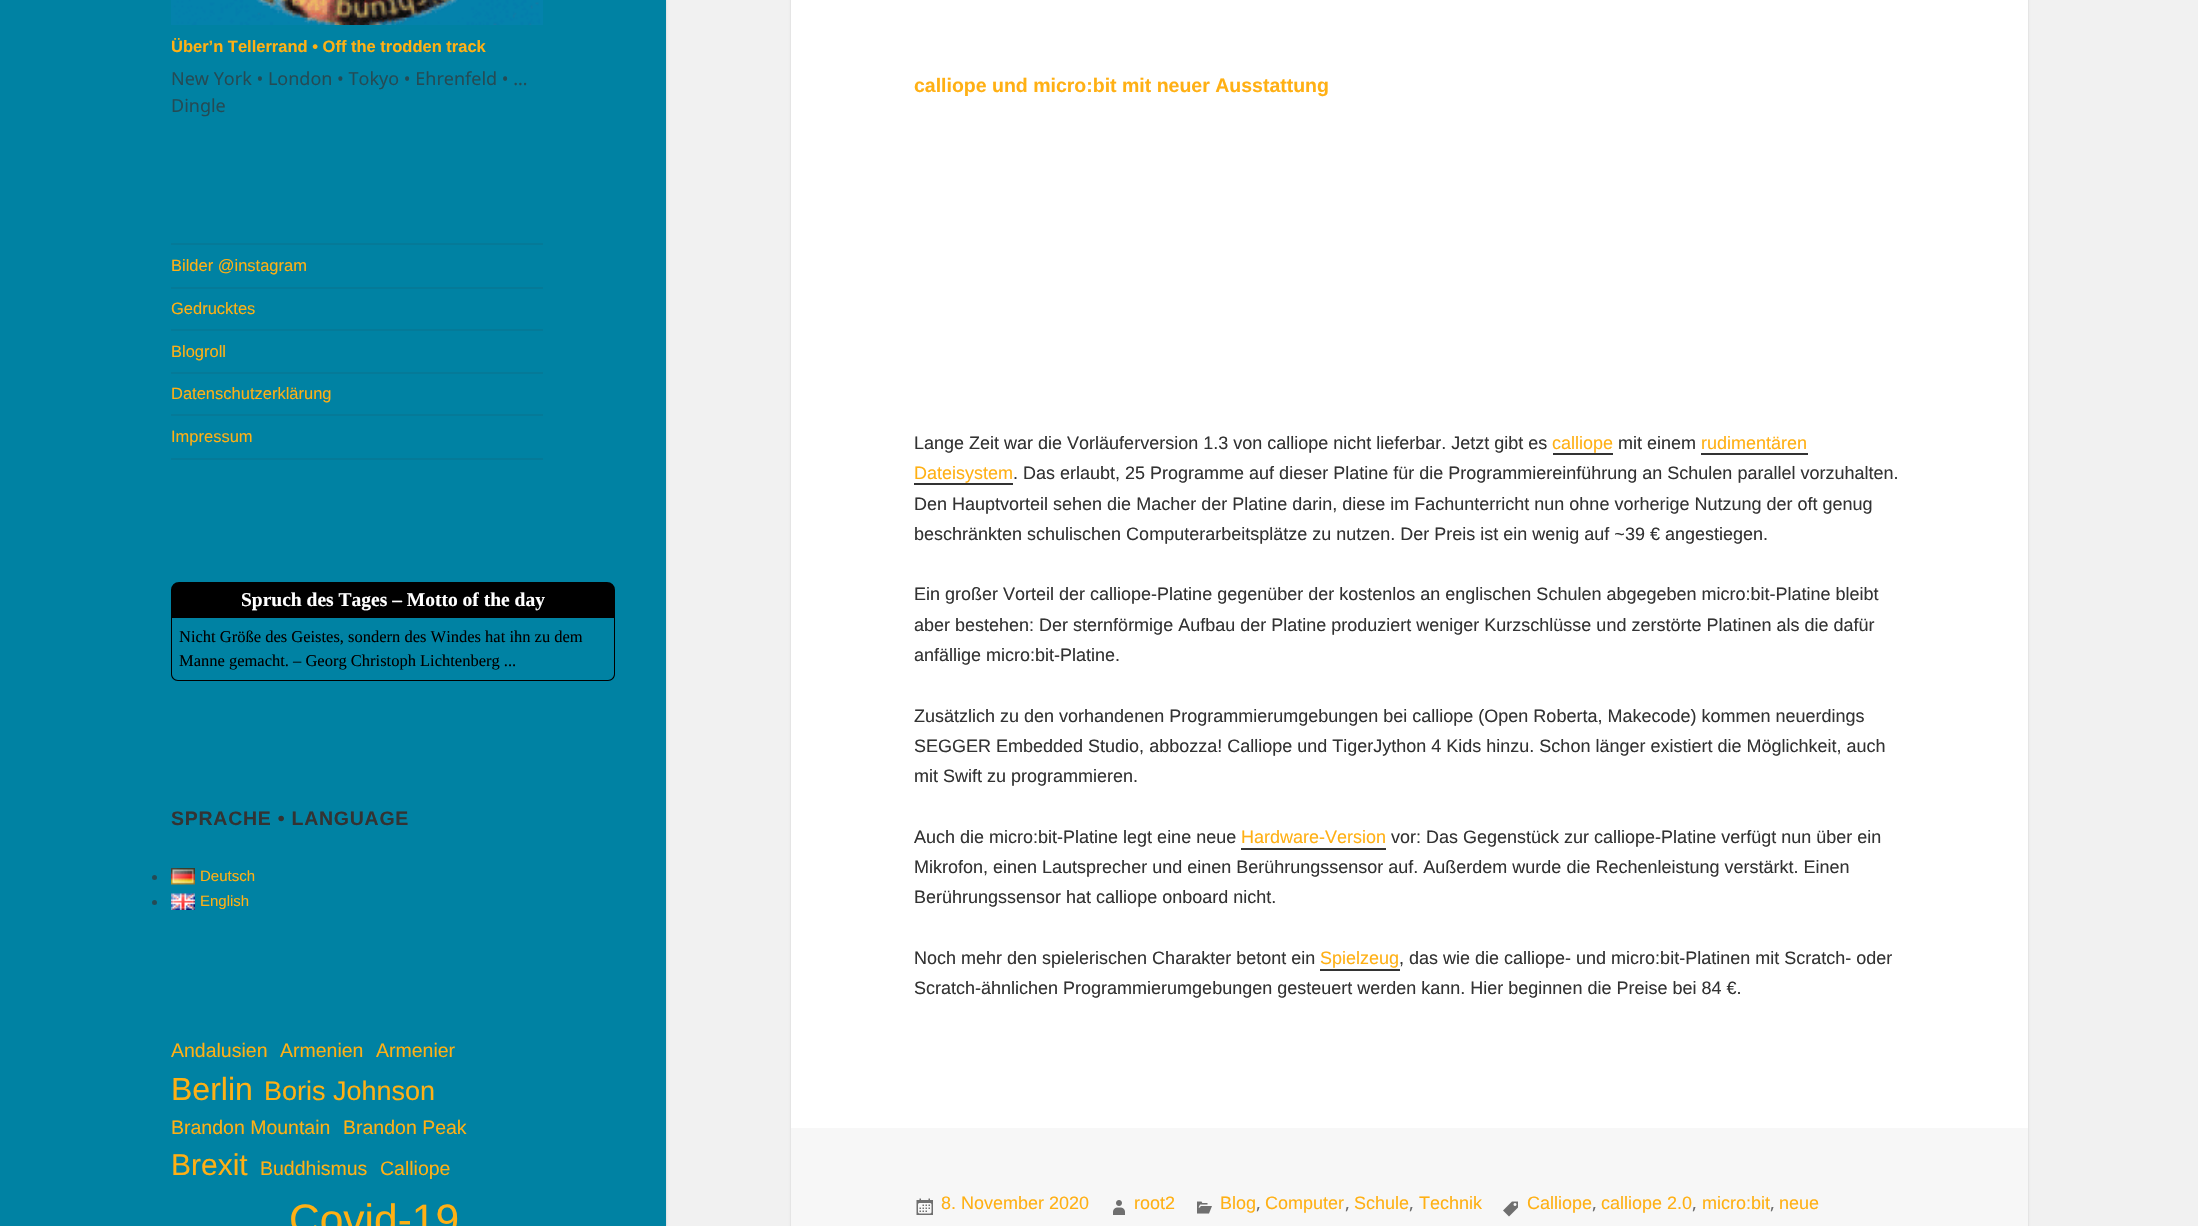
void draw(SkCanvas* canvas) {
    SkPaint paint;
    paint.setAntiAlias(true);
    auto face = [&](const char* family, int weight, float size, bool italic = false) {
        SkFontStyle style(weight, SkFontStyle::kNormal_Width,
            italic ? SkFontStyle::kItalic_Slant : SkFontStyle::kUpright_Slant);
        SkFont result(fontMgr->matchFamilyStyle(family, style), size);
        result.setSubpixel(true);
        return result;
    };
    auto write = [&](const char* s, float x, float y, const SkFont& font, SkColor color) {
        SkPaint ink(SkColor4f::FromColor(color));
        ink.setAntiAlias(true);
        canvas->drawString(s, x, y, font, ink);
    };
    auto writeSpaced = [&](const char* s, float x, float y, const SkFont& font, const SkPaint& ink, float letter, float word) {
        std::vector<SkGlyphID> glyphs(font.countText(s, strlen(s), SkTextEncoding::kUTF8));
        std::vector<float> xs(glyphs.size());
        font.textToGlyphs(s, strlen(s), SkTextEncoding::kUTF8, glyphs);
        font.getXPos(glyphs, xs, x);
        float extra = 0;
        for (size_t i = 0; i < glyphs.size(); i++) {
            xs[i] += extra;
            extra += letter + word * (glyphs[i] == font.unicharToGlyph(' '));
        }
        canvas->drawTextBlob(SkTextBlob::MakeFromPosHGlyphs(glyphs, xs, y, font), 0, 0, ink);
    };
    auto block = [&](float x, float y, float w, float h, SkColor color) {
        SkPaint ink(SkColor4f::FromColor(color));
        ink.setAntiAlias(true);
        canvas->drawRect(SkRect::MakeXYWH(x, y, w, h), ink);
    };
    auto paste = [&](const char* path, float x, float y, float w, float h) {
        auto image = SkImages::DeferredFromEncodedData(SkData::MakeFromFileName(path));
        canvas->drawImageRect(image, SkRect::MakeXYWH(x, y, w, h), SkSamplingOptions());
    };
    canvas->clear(SkColorSetRGB(241, 241, 241));
    paint.setColor(SkColorSetARGB(38, 0, 0, 0));
    paint.setMaskFilter(SkMaskFilter::MakeBlur(kNormal_SkBlurStyle, 1));
    canvas->drawRect(SkRect::MakeXYWH(0, 0, 666, 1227), paint);
    paint.setMaskFilter(nullptr);
    block(0, 0, 666, 1226, SkColorSetRGB(0, 130, 163));
    paste("pic1.png", 171, 0, 372, 25);
    auto kFont1 = face("Liberation Sans", 700, 16.5f);
    write("Über’n Tellerrand • Off the trodden track", 171, 52, kFont1, SkColorSetRGB(255, 176, 20));
    auto kFont2 = face("Noto Sans", 400, 18);
    write("New York • London • Tokyo • Ehrenfeld • …", 171, 85, kFont2, SkColorSetRGB(36, 75, 85));
    write("Dingle", 171, 112, kFont2, SkColorSetRGB(36, 75, 85));
    block(171, 243, 372, 2, SkColorSetRGB(5, 122, 152));
    block(171, 458, 372, 2, SkColorSetRGB(5, 122, 152));
    auto kFont3 = face("Liberation Sans", 400, 16.5f);
    write("Bilder @instagram", 171, 271, kFont3, SkColorSetRGB(255, 176, 20));
    block(171, 287, 372, 2, SkColorSetRGB(5, 122, 152));
    write("Gedrucktes", 171, 314, kFont3, SkColorSetRGB(255, 176, 20));
    block(171, 329, 372, 2, SkColorSetRGB(5, 122, 152));
    write("Blogroll", 171, 357, kFont3, SkColorSetRGB(255, 176, 20));
    block(171, 372, 372, 2, SkColorSetRGB(5, 122, 152));
    write("Datenschutzerklärung", 171, 399, kFont3, SkColorSetRGB(255, 176, 20));
    block(171, 414, 372, 2, SkColorSetRGB(5, 122, 152));
    write("Impressum", 171, 442, kFont3, SkColorSetRGB(255, 176, 20));
    paint.setColor(SK_ColorBLACK);
    canvas->drawPath(SkPathBuilder().moveTo(179, 583).lineTo(607, 583).cubicTo(611, 583, 614, 586, 614, 590).lineTo(614, 617).lineTo(172, 617).lineTo(172, 590).cubicTo(172, 586, 175, 583, 179, 583).close().detach(), paint);
    paint.setStyle(SkPaint::kStroke_Style);
    paint.setStrokeWidth(2);
    canvas->drawPath(SkPathBuilder().moveTo(179, 583).lineTo(607, 583).cubicTo(611, 583, 614, 586, 614, 590).lineTo(614, 617).lineTo(172, 617).lineTo(172, 590).cubicTo(172, 586, 175, 583, 179, 583).close().detach(), paint);
    auto kFont4 = face("Liberation Serif", 700, 19.5f);
    write("Spruch des Tages – Motto of the day", 241, 606, kFont4, SK_ColorWHITE);
    paint.setStyle(SkPaint::kFill_Style);
    canvas->drawPath(SkPathBuilder(SkPathFillType::kEvenOdd).moveTo(171, 618).lineTo(615, 618).lineTo(615, 674).cubicTo(615, 678, 612, 681, 608, 681).lineTo(178, 681).cubicTo(174, 681, 171, 678, 171, 674).close().moveTo(172, 618).lineTo(614, 618).lineTo(614, 674).cubicTo(614, 677, 611, 680, 608, 680).lineTo(178, 680).cubicTo(175, 680, 172, 677, 172, 674).close().detach(), paint);
    auto kFont5 = face("Liberation Serif", 400, 16.5f);
    write("Nicht Größe des Geistes, sondern des Windes hat ihn zu dem", 179, 642, kFont5, SK_ColorBLACK);
    write("Manne gemacht. – Georg Christoph Lichtenberg ...", 179, 666, kFont5, SK_ColorBLACK);
    auto kFont6 = face("Liberation Sans", 700, 19.5f);
    paint.setColor(SkColorSetRGB(51, 51, 51));
    writeSpaced("SPRACHE • LANGUAGE", 171, 825, kFont6, paint, 0.75f, 0);
    paint.setColor(SkColorSetRGB(36, 75, 85));
    canvas->drawCircle(154.5f, 877.5f, 2.5f, paint);
    paste("pic2.png", 171, 868, 24, 17);
    auto kFont7 = face("Liberation Sans", 400, 15);
    write("Deutsch", 200, 881, kFont7, SkColorSetRGB(255, 176, 20));
    canvas->drawCircle(154.5f, 902.5f, 2.5f, paint);
    paste("pic3.png", 171, 893, 24, 17);
    write("English", 200, 906, kFont7, SkColorSetRGB(255, 176, 20));
    auto kFont8 = face("Liberation Sans", 400, 19.5f);
    write("Andalusien", 171, 1057, kFont8, SkColorSetRGB(255, 176, 20));
    write("Armenien", 280, 1057, kFont8, SkColorSetRGB(255, 176, 20));
    write("Armenier", 376, 1057, kFont8, SkColorSetRGB(255, 176, 20));
    auto kFont9 = face("Liberation Sans", 400, 32);
    write("Berlin", 171, 1100, kFont9, SkColorSetRGB(255, 176, 20));
    auto kFont10 = face("Liberation Sans", 400, 27);
    write("Boris Johnson", 264, 1100, kFont10, SkColorSetRGB(255, 176, 20));
    write("Brandon Mountain", 171, 1134, kFont8, SkColorSetRGB(255, 176, 20));
    write("Brandon Peak", 343, 1134, kFont8, SkColorSetRGB(255, 176, 20));
    auto kFont11 = face("Liberation Sans", 400, 30);
    write("Brexit", 171, 1175, kFont11, SkColorSetRGB(255, 176, 20));
    write("Buddhismus", 260, 1175, kFont8, SkColorSetRGB(255, 176, 20));
    write("Calliope", 380, 1175, kFont8, SkColorSetRGB(255, 176, 20));
    auto kFont12 = face("Liberation Sans", 400, 42.5f);
    write("Covid-19", 289, 1234, kFont12, SkColorSetRGB(255, 176, 20));
    paint.setColor(SkColorSetARGB(38, 0, 0, 0));
    paint.setMaskFilter(SkMaskFilter::MakeBlur(kNormal_SkBlurStyle, 1));
    canvas->drawRect(SkRect::MakeXYWH(791, -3, 1237, 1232), paint);
    paint.setMaskFilter(nullptr);
    block(791, 0, 1237, 1128, SK_ColorWHITE);
    write("calliope und micro:bit mit neuer Ausstattung", 914, 92, kFont6, SkColorSetRGB(255, 176, 20));
    auto kFont13 = face("Liberation Sans", 400, 18);
    write("Lange Zeit war die Vorläuferversion 1.3 von calliope nicht lieferbar. Jetzt gibt es", 914, 449, kFont13, SkColorSetRGB(51, 51, 51));
    write("calliope", 1552, 449, kFont13, SkColorSetRGB(255, 176, 20));
    block(1553, 453, 60, 2, SkColorSetRGB(51, 51, 51));
    write("mit einem", 1618, 449, kFont13, SkColorSetRGB(51, 51, 51));
    write("rudimentären", 1701, 449, kFont13, SkColorSetRGB(255, 176, 20));
    block(1701, 453, 107, 2, SkColorSetRGB(51, 51, 51));
    write("Dateisystem", 914, 479, kFont13, SkColorSetRGB(255, 176, 20));
    block(914, 483, 99, 2, SkColorSetRGB(51, 51, 51));
    write(". Das erlaubt, 25 Programme auf dieser Platine für die Programmiereinführung an Schulen parallel vorzuhalten.", 1013, 479, kFont13, SkColorSetRGB(51, 51, 51));
    write("Den Hauptvorteil sehen die Macher der Platine darin, diese im Fachunterricht nun ohne vorherige Nutzung der oft genug", 914, 510, kFont13, SkColorSetRGB(51, 51, 51));
    write("beschränkten schulischen Computerarbeitsplätze zu nutzen. Der Preis ist ein wenig auf ~39 € angestiegen.", 914, 540, kFont13, SkColorSetRGB(51, 51, 51));
    write("Ein großer Vorteil der calliope-Platine gegenüber der kostenlos an englischen Schulen abgegeben micro:bit-Platine bleibt", 914, 600, kFont13, SkColorSetRGB(51, 51, 51));
    write("aber bestehen: Der sternförmige Aufbau der Platine produziert weniger Kurzschlüsse und zerstörte Platinen als die dafür", 914, 631, kFont13, SkColorSetRGB(51, 51, 51));
    write("anfällige micro:bit-Platine.", 914, 661, kFont13, SkColorSetRGB(51, 51, 51));
    write("Zusätzlich zu den vorhandenen Programmierumgebungen bei calliope (Open Roberta, Makecode) kommen neuerdings", 914, 722, kFont13, SkColorSetRGB(51, 51, 51));
    write("SEGGER Embedded Studio, abbozza! Calliope und TigerJython 4 Kids hinzu. Schon länger existiert die Möglichkeit, auch", 914, 752, kFont13, SkColorSetRGB(51, 51, 51));
    write("mit Swift zu programmieren.", 914, 782, kFont13, SkColorSetRGB(51, 51, 51));
    write("Auch die micro:bit-Platine legt eine neue", 914, 843, kFont13, SkColorSetRGB(51, 51, 51));
    write("Hardware-Version", 1241, 843, kFont13, SkColorSetRGB(255, 176, 20));
    block(1241, 848, 145, 2, SkColorSetRGB(51, 51, 51));
    write("vor: Das Gegenstück zur calliope-Platine verfügt nun über ein", 1391, 843, kFont13, SkColorSetRGB(51, 51, 51));
    write("Mikrofon, einen Lautsprecher und einen Berührungssensor auf. Außerdem wurde die Rechenleistung verstärkt. Einen", 914, 873, kFont13, SkColorSetRGB(51, 51, 51));
    write("Berührungssensor hat calliope onboard nicht.", 914, 903, kFont13, SkColorSetRGB(51, 51, 51));
    write("Noch mehr den spielerischen Charakter betont ein", 914, 964, kFont13, SkColorSetRGB(51, 51, 51));
    write("Spielzeug", 1320, 964, kFont13, SkColorSetRGB(255, 176, 20));
    block(1320, 969, 80, 2, SkColorSetRGB(51, 51, 51));
    write(", das wie die calliope- und micro:bit-Platinen mit Scratch- oder", 1399, 964, kFont13, SkColorSetRGB(51, 51, 51));
    write("Scratch-ähnlichen Programmierumgebungen gesteuert werden kann. Hier beginnen die Preise bei 84 €.", 914, 994, kFont13, SkColorSetRGB(51, 51, 51));
    block(791, 1128, 1237, 98, SkColorSetRGB(247, 247, 247));
    paste("pic4.png", 916, 1198, 17, 17);
    write("8. November 2020", 941, 1209, kFont13, SkColorSetRGB(255, 176, 20));
    paste("pic5.png", 1113, 1200, 12, 15);
    write("root2", 1134, 1209, kFont13, SkColorSetRGB(255, 176, 20));
    paste("pic6.png", 1197, 1201, 15, 13);
    write("Blog", 1220, 1209, kFont13, SkColorSetRGB(255, 176, 20));
    write(",", 1256, 1209, kFont2, SkColorSetRGB(110, 110, 110));
    write("Computer", 1265, 1209, kFont13, SkColorSetRGB(255, 176, 20));
    write(",", 1345, 1209, kFont2, SkColorSetRGB(110, 110, 110));
    write("Schule", 1354, 1209, kFont13, SkColorSetRGB(255, 176, 20));
    write(",", 1409, 1209, kFont2, SkColorSetRGB(110, 110, 110));
    write("Technik", 1419, 1209, kFont13, SkColorSetRGB(255, 176, 20));
    paste("pic7.png", 1503, 1201, 15, 16);
    write("Calliope", 1527, 1209, kFont13, SkColorSetRGB(255, 176, 20));
    write(",", 1592, 1209, kFont2, SkColorSetRGB(110, 110, 110));
    write("calliope 2.0", 1601, 1209, kFont13, SkColorSetRGB(255, 176, 20));
    write(",", 1692, 1209, kFont2, SkColorSetRGB(110, 110, 110));
    write("micro:bit", 1702, 1209, kFont13, SkColorSetRGB(255, 176, 20));
    write(",", 1770, 1209, kFont2, SkColorSetRGB(110, 110, 110));
    write("neue", 1779, 1209, kFont13, SkColorSetRGB(255, 176, 20));
}
